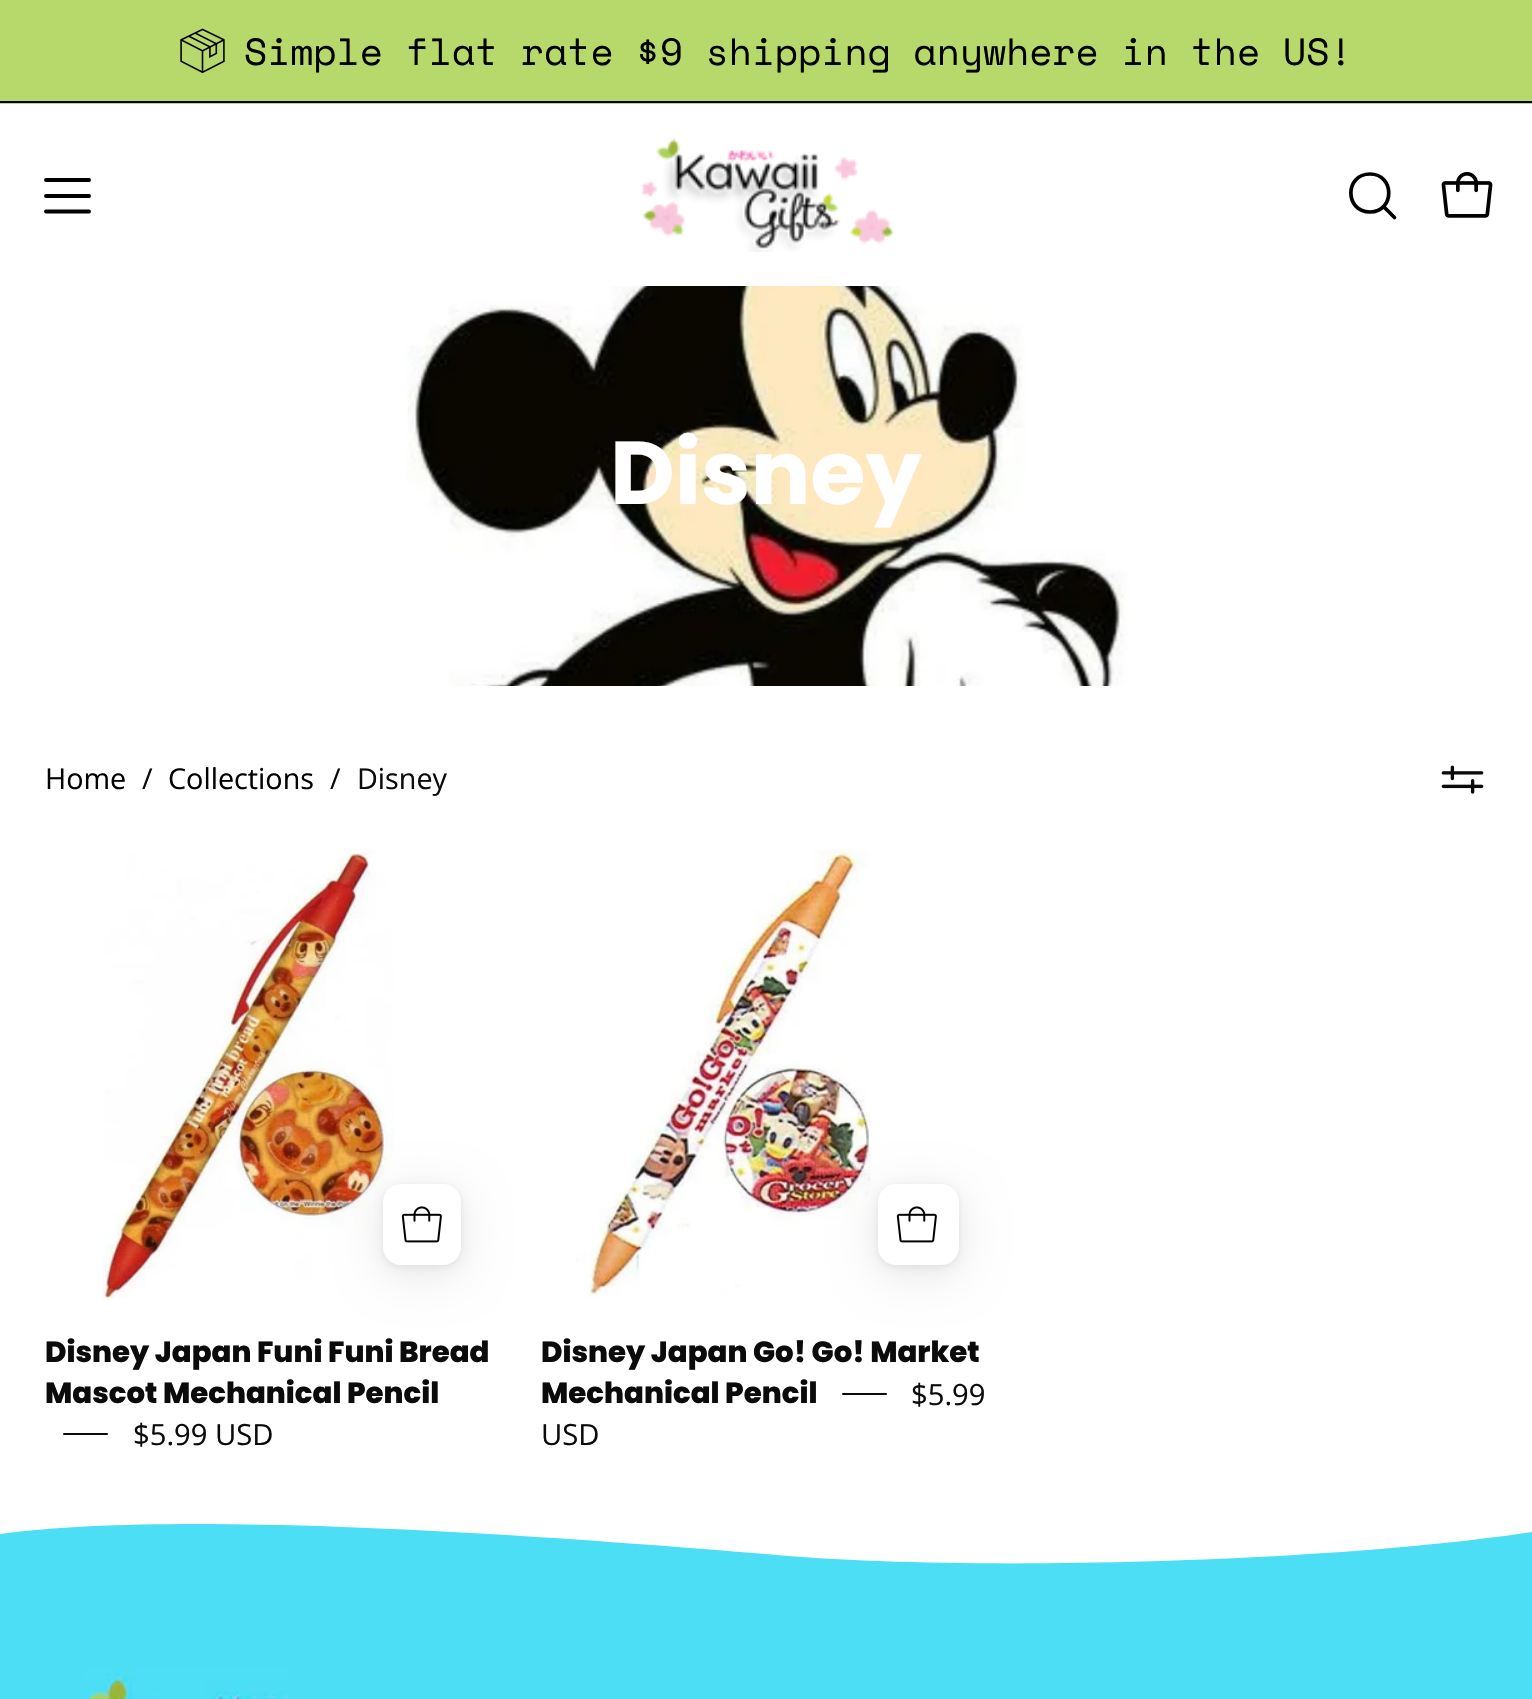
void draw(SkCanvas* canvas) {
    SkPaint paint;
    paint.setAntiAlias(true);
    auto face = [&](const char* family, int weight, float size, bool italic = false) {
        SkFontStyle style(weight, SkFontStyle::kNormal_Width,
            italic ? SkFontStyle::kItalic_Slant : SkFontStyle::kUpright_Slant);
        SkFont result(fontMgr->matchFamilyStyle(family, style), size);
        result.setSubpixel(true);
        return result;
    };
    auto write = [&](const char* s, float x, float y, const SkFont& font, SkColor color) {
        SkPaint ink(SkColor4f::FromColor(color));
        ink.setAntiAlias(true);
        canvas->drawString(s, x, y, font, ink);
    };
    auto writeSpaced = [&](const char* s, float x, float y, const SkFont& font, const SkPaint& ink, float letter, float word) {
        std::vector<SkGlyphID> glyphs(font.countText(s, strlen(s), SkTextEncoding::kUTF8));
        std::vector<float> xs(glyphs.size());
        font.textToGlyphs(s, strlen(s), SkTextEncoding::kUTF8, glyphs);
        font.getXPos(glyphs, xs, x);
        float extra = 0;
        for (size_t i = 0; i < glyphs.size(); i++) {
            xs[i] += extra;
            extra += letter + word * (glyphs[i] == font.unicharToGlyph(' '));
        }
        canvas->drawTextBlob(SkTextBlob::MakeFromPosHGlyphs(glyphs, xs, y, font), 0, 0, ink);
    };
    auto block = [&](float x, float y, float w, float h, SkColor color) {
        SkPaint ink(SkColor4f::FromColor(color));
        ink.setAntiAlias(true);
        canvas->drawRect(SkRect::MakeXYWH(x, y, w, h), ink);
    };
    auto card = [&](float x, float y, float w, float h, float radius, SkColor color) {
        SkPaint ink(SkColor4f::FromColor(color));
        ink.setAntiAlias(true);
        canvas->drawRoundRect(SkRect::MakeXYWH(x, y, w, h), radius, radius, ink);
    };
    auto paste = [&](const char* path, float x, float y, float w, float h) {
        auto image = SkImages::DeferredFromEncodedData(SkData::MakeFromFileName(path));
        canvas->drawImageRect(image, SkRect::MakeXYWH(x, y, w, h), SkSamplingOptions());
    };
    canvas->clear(SK_ColorWHITE);
    block(0, 0, 1532, 104, SkColorSetRGB(183, 217, 107));
    block(0, 101, 1532, 2, SK_ColorBLACK);
    paste("pic1.png", 180, 28, 45, 46);
    auto kFont1 = face("Space Mono", 400, 37.8f);
    paint.setColor(SK_ColorBLACK);
    writeSpaced("Simple flat rate $9 shipping anywhere in the US!", 244, 65, kFont1, paint, 0, -0.25f);
    paint.setStyle(SkPaint::kStroke_Style);
    paint.setStrokeWidth(3.9f);
    paint.setStrokeCap(SkPaint::kRound_Cap);
    paint.setStrokeJoin(SkPaint::kRound_Join);
    canvas->drawPath(SkPathBuilder().moveTo(46, 196).lineTo(89, 196).moveTo(46, 180).lineTo(89, 180).moveTo(46, 211.5f).lineTo(89, 211.5f).detach(), paint);
    paste("pic2.png", 641, 138, 253, 114);
    paint.setStrokeWidth(3.7f);
    canvas->drawPath(SkPathBuilder().moveTo(1370, 212).cubicTo(1395, 212, 1395, 174, 1370, 174).cubicTo(1344.5f, 174, 1344.5f, 212, 1370, 212).close().moveTo(1383.5f, 206.5f).lineTo(1394.5f, 217.5f).detach(), paint);
    paste("pic3.png", 1441, 172, 52, 46);
    paste("pic4.png", 0, 286, 1532, 400);
    auto kFont2 = face("Poppins", 700, 89);
    write("Disney", 610, 504, kFont2, SK_ColorWHITE);
    auto kFont3 = face("Open Sans", 400, 28.75f);
    write("Home", 45, 789, kFont3, SK_ColorBLACK);
    write("/", 142, 789, kFont3, SkColorSetRGB(11, 11, 11));
    write("Collections", 168, 789, kFont3, SK_ColorBLACK);
    write("/", 330, 789, kFont3, SkColorSetRGB(11, 11, 11));
    write("Disney", 357, 789, kFont3, SkColorSetRGB(11, 11, 11));
    paste("pic5.png", 1441, 765, 43, 29);
    paste("pic6.png", 102, 849, 292, 449);
    paint.setStyle(SkPaint::kFill_Style);
    paint.setColor(SkColorSetARGB(18, 0, 0, 0));
    paint.setMaskFilter(SkMaskFilter::MakeBlur(kNormal_SkBlurStyle, 3.5f));
    canvas->drawRoundRect(SkRect::MakeXYWH(383, 1186, 78, 81), 18, 18, paint);
    paint.setMaskFilter(nullptr);
    paint.setColor(SkColorSetARGB(26, 0, 0, 0));
    paint.setMaskFilter(SkMaskFilter::MakeBlur(kNormal_SkBlurStyle, 22.5f));
    canvas->drawRoundRect(SkRect::MakeXYWH(383, 1193, 78, 81), 18, 18, paint);
    paint.setMaskFilter(nullptr);
    card(383, 1184, 78, 81, 18, SK_ColorWHITE);
    paste("pic7.png", 401, 1206, 41, 37);
    auto kFont4 = face("Poppins", 800, 29.2f);
    write("Disney Japan Funi Funi Bread", 45, 1362, kFont4, SkColorSetRGB(11, 11, 11));
    write("Mascot Mechanical Pencil", 45, 1403, kFont4, SkColorSetRGB(11, 11, 11));
    card(63, 1433, 45, 2, 1, SkColorSetRGB(11, 11, 11));
    auto kFont5 = face("Open Sans", 400, 29.2f);
    write("$5.99 USD", 133, 1445, kFont5, SkColorSetRGB(11, 11, 11));
    paste("pic8.png", 576, 848, 295, 450);
    paint.setColor(SkColorSetARGB(18, 0, 0, 0));
    paint.setMaskFilter(SkMaskFilter::MakeBlur(kNormal_SkBlurStyle, 3.5f));
    canvas->drawRoundRect(SkRect::MakeXYWH(878, 1186, 81, 81), 18, 18, paint);
    paint.setMaskFilter(nullptr);
    paint.setColor(SkColorSetARGB(26, 0, 0, 0));
    paint.setMaskFilter(SkMaskFilter::MakeBlur(kNormal_SkBlurStyle, 22.5f));
    canvas->drawRoundRect(SkRect::MakeXYWH(878, 1193, 81, 81), 18, 18, paint);
    paint.setMaskFilter(nullptr);
    card(878, 1184, 81, 81, 18, SK_ColorWHITE);
    paste("pic7.png", 896, 1206, 41, 37);
    write("Disney Japan Go! Go! Market", 541, 1362, kFont4, SkColorSetRGB(11, 11, 11));
    write("Mechanical Pencil", 541, 1403, kFont4, SkColorSetRGB(11, 11, 11));
    card(842, 1393, 45, 2, 1, SkColorSetRGB(11, 11, 11));
    write("$5.99", 911, 1405, kFont5, SkColorSetRGB(11, 11, 11));
    write("USD", 541, 1445, kFont5, SkColorSetRGB(11, 11, 11));
    block(0, 1586, 1532, 113, SkColorSetRGB(76, 222, 245));
    canvas->save();
    canvas->clipRect(SkRect::MakeXYWH(0, 1523, 1532, 63));
    paint.setColor(SkColorSetRGB(76, 222, 245));
    canvas->drawPath(SkPathBuilder().moveTo(0, 1534).cubicTo(175, 1510, 525, 1534, 766, 1554).cubicTo(963, 1573, 1335, 1562, 1532, 1532).lineTo(1532, 1587).lineTo(0, 1587).detach(), paint);
    canvas->restore();
    paste("pic9.png", 84, 1667, 205, 32);
}
